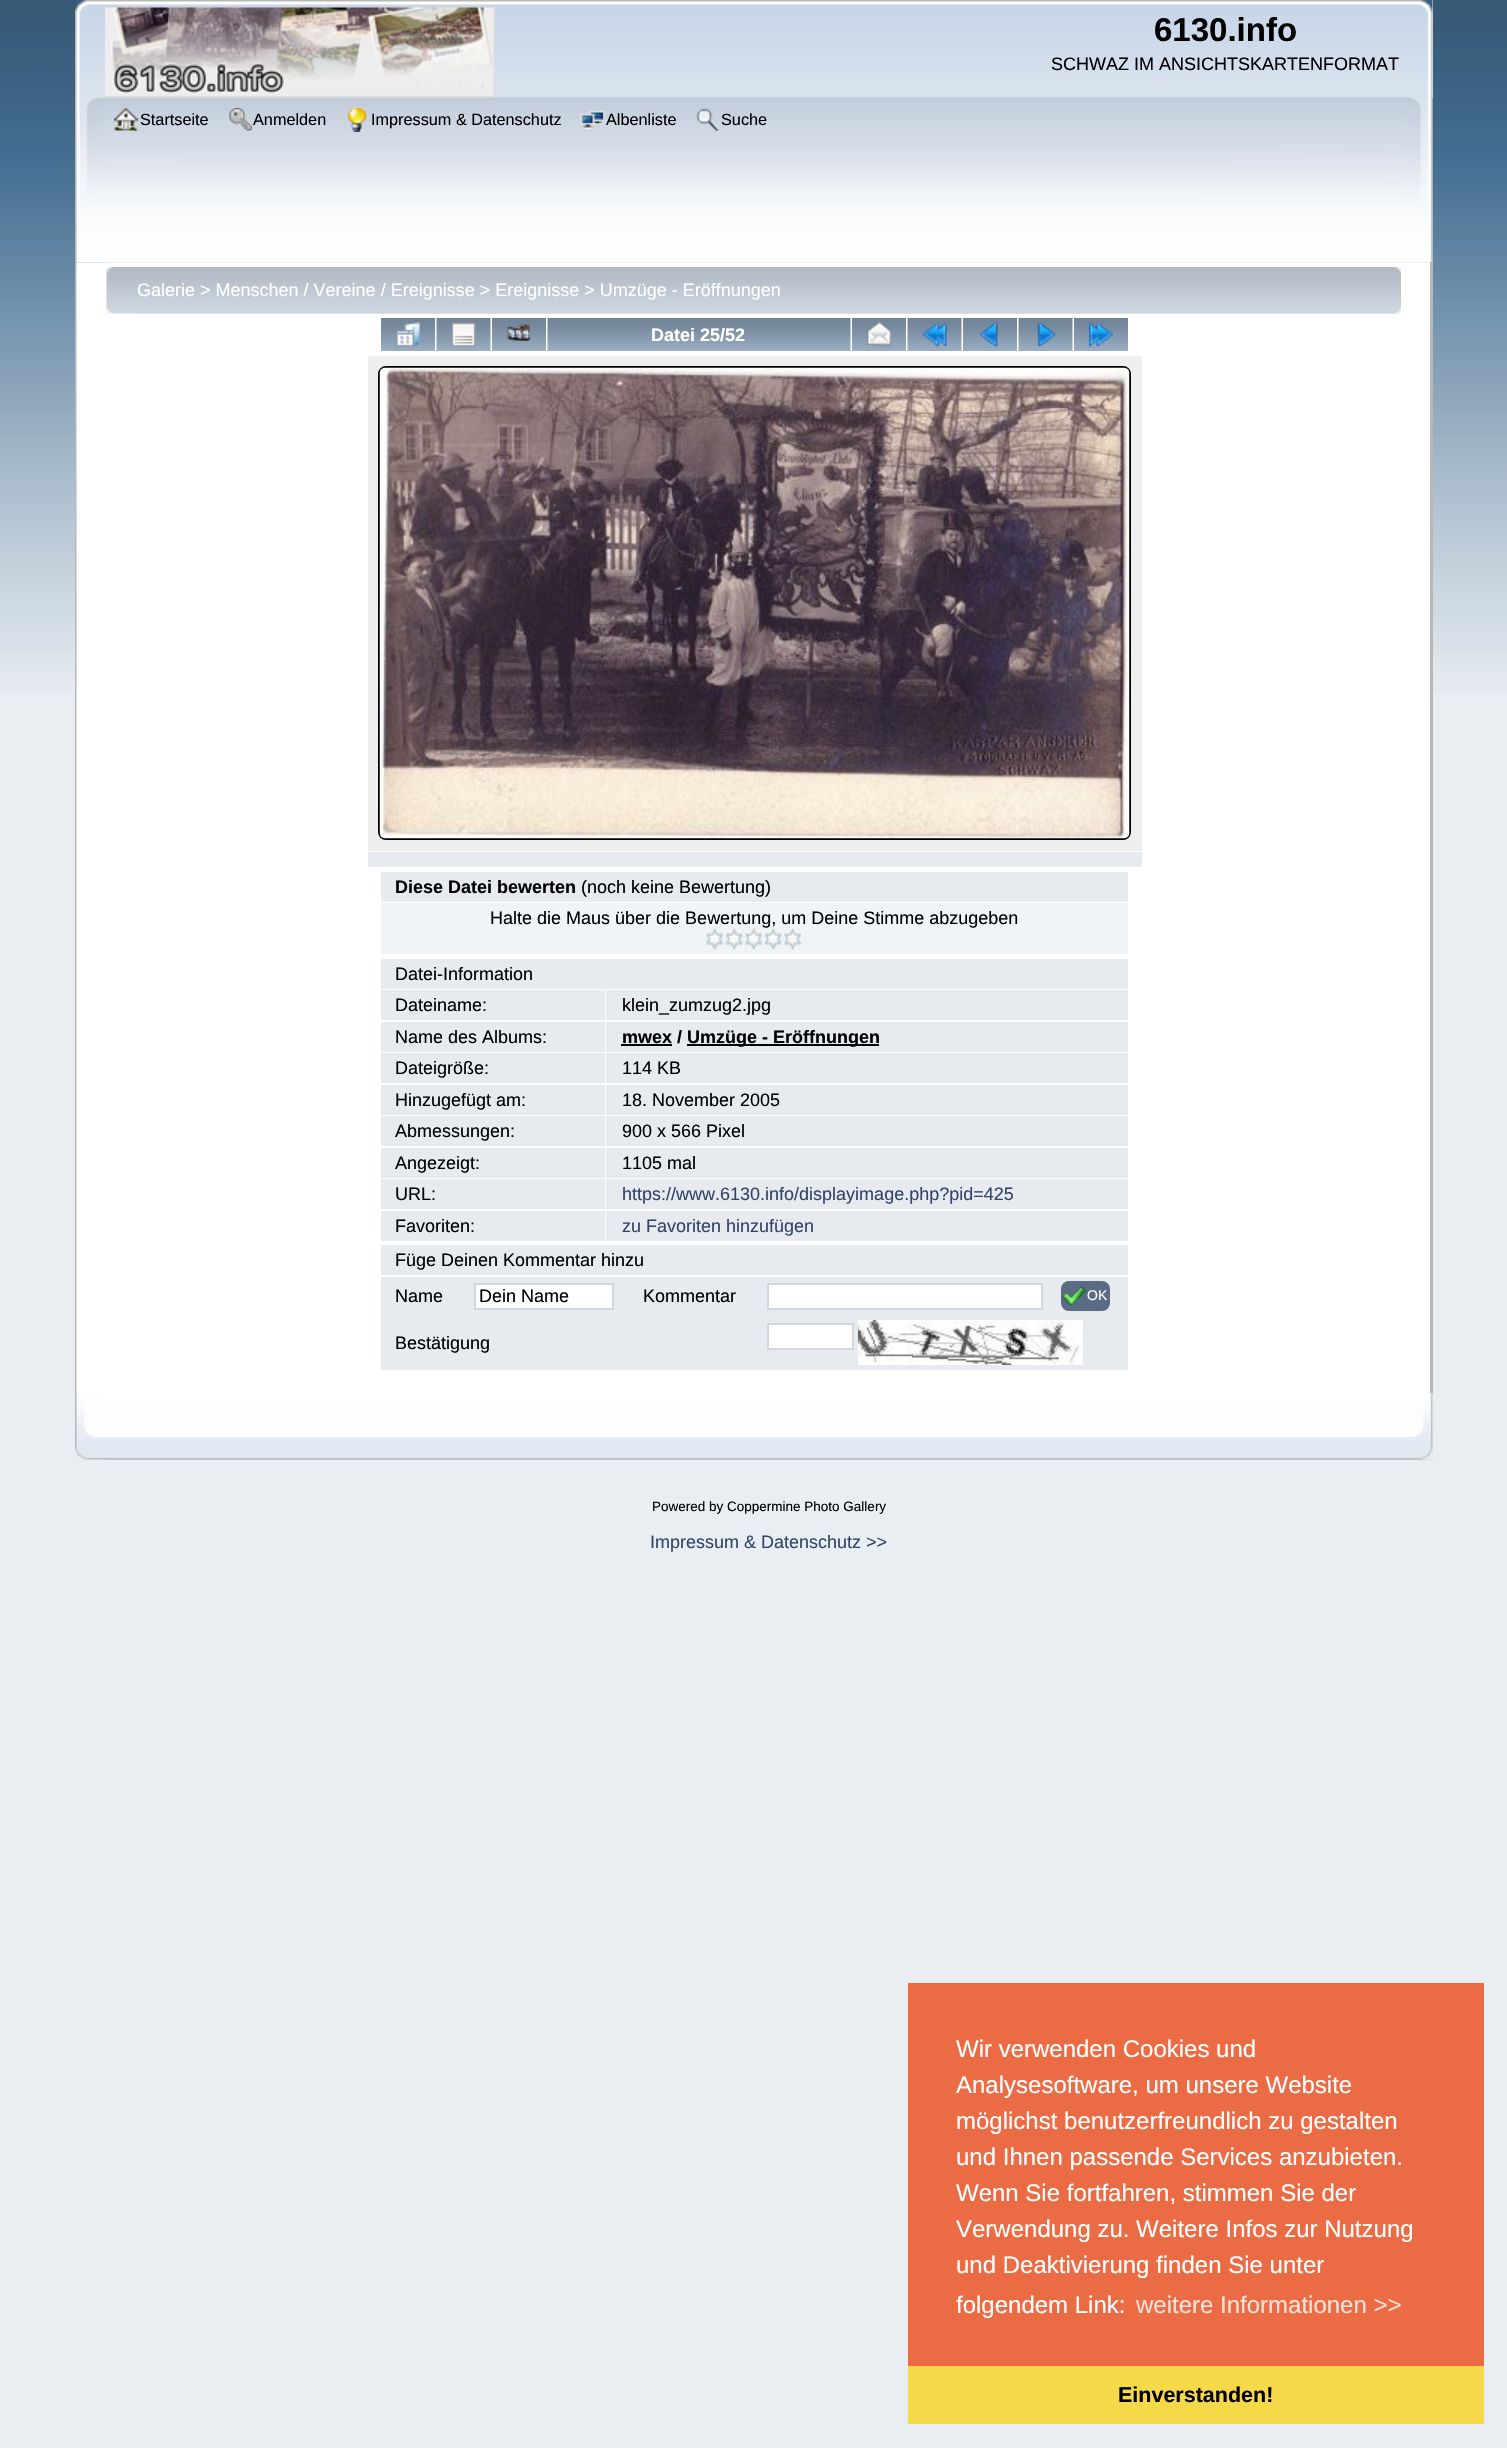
void draw(SkCanvas* canvas) {
    SkPaint paint;
    paint.setAntiAlias(true);
    auto face = [&](const char* family, int weight, float size, bool italic = false) {
        SkFontStyle style(weight, SkFontStyle::kNormal_Width,
            italic ? SkFontStyle::kItalic_Slant : SkFontStyle::kUpright_Slant);
        SkFont result(fontMgr->matchFamilyStyle(family, style), size);
        result.setSubpixel(true);
        return result;
    };
    auto write = [&](const char* s, float x, float y, const SkFont& font, SkColor color) {
        SkPaint ink(SkColor4f::FromColor(color));
        ink.setAntiAlias(true);
        canvas->drawString(s, x, y, font, ink);
    };
    auto block = [&](float x, float y, float w, float h, SkColor color) {
        SkPaint ink(SkColor4f::FromColor(color));
        ink.setAntiAlias(true);
        canvas->drawRect(SkRect::MakeXYWH(x, y, w, h), ink);
    };
    auto paste = [&](const char* path, float x, float y, float w, float h) {
        auto image = SkImages::DeferredFromEncodedData(SkData::MakeFromFileName(path));
        canvas->drawImageRect(image, SkRect::MakeXYWH(x, y, w, h), SkSamplingOptions());
    };
    canvas->clear(SkColorSetRGB(233, 238, 242));
    paste("pic1.png", 0, 0, 1507, 693);
    block(75, 0, 1358, 98, SkColorSetRGB(254, 254, 254));
    paste("pic2.png", 75, 0, 1358, 98);
    paste("pic3.png", 105, 0, 1328, 98);
    paste("pic5.png", 75, 97, 1358, 166);
    paste("pic6.png", 105, 97, 1328, 166);
    paste("pic4.png", 105, 7, 390, 91);
    auto kFont1 = face("Liberation Sans", 700, 33);
    write("6130.info", 1154, 41, kFont1, SK_ColorBLACK);
    auto kFont2 = face("Liberation Sans", 400, 18);
    write("SCHWAZ IM ANSICHTSKARTENFORMAT", 1051, 70, kFont2, SK_ColorBLACK);
    paste("pic7.png", 114, 108, 24, 24);
    auto kFont3 = face("Liberation Sans", 400, 16.25f);
    write("Startseite", 140, 125, kFont3, SK_ColorBLACK);
    paste("pic8.png", 229, 108, 23, 23);
    write("Anmelden", 253, 125, kFont3, SK_ColorBLACK);
    paste("pic9.png", 347, 108, 20, 24);
    write("Impressum & Datenschutz", 371, 125, kFont3, SK_ColorBLACK);
    paste("pic10.png", 580, 111, 25, 19);
    write("Albenliste", 606, 125, kFont3, SK_ColorBLACK);
    paste("pic11.png", 696, 108, 24, 23);
    write("Suche", 721, 125, kFont3, SK_ColorBLACK);
    paste("pic12.png", 75, 262, 1355, 1132);
    block(1430, 262, 3, 1132, SkColorSetRGB(183, 183, 183));
    paste("pic13.png", 106, 267, 1295, 47);
    paste("pic14.png", 136, 267, 1265, 47);
    write("Galerie > Menschen / Vereine / Ereignisse > Ereignisse > Umzüge - Eröffnungen", 137, 296, kFont2, SK_ColorWHITE);
    paste("pic15.png", 381, 318, 54, 33);
    paste("pic16.png", 396, 322, 24, 25);
    paste("pic17.png", 436, 318, 55, 33);
    paste("pic18.png", 451, 322, 25, 25);
    paste("pic15.png", 492, 318, 54, 33);
    paste("pic19.png", 507, 323, 24, 19);
    paste("pic20.png", 547, 318, 304, 33);
    auto kFont4 = face("Liberation Sans", 700, 18);
    write("Datei 25/52", 651, 341, kFont4, SK_ColorWHITE);
    paste("pic15.png", 852, 318, 54, 33);
    paste("pic21.png", 867, 322, 24, 25);
    paste("pic17.png", 907, 318, 55, 33);
    paste("pic22.png", 922, 322, 25, 25);
    paste("pic15.png", 963, 318, 54, 33);
    paste("pic23.png", 979, 322, 19, 25);
    paste("pic17.png", 1018, 318, 55, 33);
    paste("pic24.png", 1037, 322, 20, 25);
    paste("pic15.png", 1074, 318, 54, 33);
    paste("pic25.png", 1089, 322, 24, 25);
    block(368, 356, 774, 495, SkColorSetRGB(239, 239, 239));
    paint.setStyle(SkPaint::kStroke_Style);
    paint.setStrokeWidth(2);
    paint.setColor(SK_ColorBLACK);
    canvas->drawRoundRect(SkRect::MakeXYWH(379, 367, 751, 472), 7, 7, paint);
    paste("pic26.png", 379, 367, 751, 472);
    block(368, 852, 774, 15, SkColorSetRGB(231, 234, 239));
    block(381, 872, 747, 30, SkColorSetRGB(231, 234, 239));
    write("Diese Datei bewerten", 395, 893, kFont4, SK_ColorBLACK);
    write("(noch keine Bewertung)", 581, 893, kFont2, SK_ColorBLACK);
    block(381, 903, 747, 51, SkColorSetRGB(240, 244, 247));
    write("Halte die Maus über die Bewertung, um Deine Stimme abzugeben", 490, 924, kFont2, SK_ColorBLACK);
    paste("pic27.png", 705, 928, 19, 22);
    paste("pic28.png", 724, 928, 20, 22);
    paste("pic27.png", 744, 928, 19, 22);
    paste("pic29.png", 763, 928, 20, 22);
    paste("pic30.png", 783, 928, 19, 22);
    block(381, 959, 747, 30, SkColorSetRGB(231, 234, 239));
    write("Datei-Information", 395, 980, kFont2, SK_ColorBLACK);
    block(381, 990, 224, 30, SkColorSetRGB(231, 234, 239));
    write("Dateiname:", 395, 1011, kFont2, SK_ColorBLACK);
    block(606, 990, 522, 30, SkColorSetRGB(231, 234, 239));
    write("klein_zumzug2.jpg", 622, 1011, kFont2, SK_ColorBLACK);
    block(381, 1022, 224, 30, SkColorSetRGB(231, 234, 239));
    write("Name des Albums:", 395, 1043, kFont2, SK_ColorBLACK);
    block(606, 1022, 522, 30, SkColorSetRGB(231, 234, 239));
    write("mwex /", 622, 1043, kFont4, SK_ColorBLACK);
    block(621, 1044, 51, 2, SK_ColorBLACK);
    block(687, 1044, 192, 2, SK_ColorBLACK);
    write("Umzüge - Eröffnungen", 687, 1043, kFont4, SK_ColorBLACK);
    block(381, 1053, 224, 30, SkColorSetRGB(231, 234, 239));
    write("Dateigröße:", 395, 1074, kFont2, SK_ColorBLACK);
    block(606, 1053, 522, 30, SkColorSetRGB(231, 234, 239));
    write("114 KB", 622, 1074, kFont2, SK_ColorBLACK);
    block(381, 1085, 224, 30, SkColorSetRGB(231, 234, 239));
    write("Hinzugefügt am:", 395, 1106, kFont2, SK_ColorBLACK);
    block(606, 1085, 522, 30, SkColorSetRGB(231, 234, 239));
    write("18. November 2005", 622, 1106, kFont2, SK_ColorBLACK);
    block(381, 1116, 224, 30, SkColorSetRGB(231, 234, 239));
    write("Abmessungen:", 395, 1137, kFont2, SK_ColorBLACK);
    block(606, 1116, 522, 30, SkColorSetRGB(231, 234, 239));
    write("900 x 566 Pixel", 622, 1137, kFont2, SK_ColorBLACK);
    block(381, 1148, 224, 30, SkColorSetRGB(231, 234, 239));
    write("Angezeigt:", 395, 1169, kFont2, SK_ColorBLACK);
    block(606, 1148, 522, 30, SkColorSetRGB(231, 234, 239));
    write("1105 mal", 622, 1169, kFont2, SK_ColorBLACK);
    block(381, 1179, 224, 30, SkColorSetRGB(231, 234, 239));
    write("URL:", 395, 1200, kFont2, SK_ColorBLACK);
    block(606, 1179, 522, 30, SkColorSetRGB(231, 234, 239));
    write("https://www.6130.info/displayimage.php?pid=425", 622, 1200, kFont2, SkColorSetRGB(51, 68, 102));
    block(381, 1211, 224, 30, SkColorSetRGB(231, 234, 239));
    write("Favoriten:", 395, 1232, kFont2, SK_ColorBLACK);
    block(606, 1211, 522, 30, SkColorSetRGB(231, 234, 239));
    write("zu Favoriten hinzufügen", 622, 1232, kFont2, SkColorSetRGB(51, 68, 102));
    block(381, 1245, 747, 30, SkColorSetRGB(231, 234, 239));
    write("Füge Deinen Kommentar hinzu", 395, 1266, kFont2, SK_ColorBLACK);
    block(381, 1277, 747, 39, SkColorSetRGB(231, 234, 239));
    write("Name", 395, 1302, kFont2, SK_ColorBLACK);
    paint.setStyle(SkPaint::kFill_Style);
    paint.setColor(SK_ColorWHITE);
    canvas->drawRect(SkRect::MakeXYWH(475, 1284, 138, 25), paint);
    paint.setStyle(SkPaint::kStroke_Style);
    paint.setColor(SkColorSetRGB(209, 215, 220));
    canvas->drawRect(SkRect::MakeXYWH(475, 1284, 138, 25), paint);
    write("Dein Name", 479, 1302, kFont2, SK_ColorBLACK);
    write("Kommentar", 643, 1302, kFont2, SK_ColorBLACK);
    paint.setStyle(SkPaint::kFill_Style);
    paint.setColor(SK_ColorWHITE);
    canvas->drawRect(SkRect::MakeXYWH(768, 1284, 274, 25), paint);
    paint.setStyle(SkPaint::kStroke_Style);
    paint.setColor(SkColorSetRGB(209, 215, 220));
    canvas->drawRect(SkRect::MakeXYWH(768, 1284, 274, 25), paint);
    paint.setStyle(SkPaint::kFill_Style);
    paint.setColor(SkColorSetRGB(90, 108, 133));
    canvas->drawRoundRect(SkRect::MakeXYWH(1062, 1282, 47, 28), 7, 7, paint);
    paint.setStyle(SkPaint::kStroke_Style);
    canvas->drawRoundRect(SkRect::MakeXYWH(1062, 1282, 47, 28), 7, 7, paint);
    paste("pic31.png", 1062, 1286, 24, 20);
    auto kFont5 = face("Liberation Sans", 400, 14);
    write("OK", 1087, 1300, kFont5, SK_ColorWHITE);
    block(381, 1316, 747, 54, SkColorSetRGB(231, 234, 239));
    write("Bestätigung", 395, 1349, kFont2, SK_ColorBLACK);
    paint.setStyle(SkPaint::kFill_Style);
    paint.setColor(SK_ColorWHITE);
    canvas->drawRect(SkRect::MakeXYWH(768, 1324, 85, 25), paint);
    paint.setStyle(SkPaint::kStroke_Style);
    paint.setColor(SkColorSetRGB(209, 215, 220));
    canvas->drawRect(SkRect::MakeXYWH(768, 1324, 85, 25), paint);
    paste("pic32.png", 858, 1320, 225, 45);
    paste("pic33.png", 75, 1393, 1358, 67);
    paste("pic34.png", 105, 1393, 1328, 67);
    auto kFont6 = face("Liberation Sans", 400, 13.5f);
    write("Powered by Coppermine Photo Gallery", 652, 1511, kFont6, SK_ColorBLACK);
    write("Impressum & Datenschutz >>", 650, 1548, kFont2, SkColorSetRGB(51, 68, 102));
    block(908, 1983, 576, 383, SkColorSetRGB(235, 108, 68));
    auto kFont7 = face("Liberation Sans", 400, 24);
    write("Wir verwenden Cookies und", 956, 2057, kFont7, SK_ColorWHITE);
    write("Analysesoftware, um unsere Website", 956, 2093, kFont7, SK_ColorWHITE);
    write("möglichst benutzerfreundlich zu gestalten", 956, 2129, kFont7, SK_ColorWHITE);
    write("und Ihnen passende Services anzubieten.", 956, 2165, kFont7, SK_ColorWHITE);
    write("Wenn Sie fortfahren, stimmen Sie der", 956, 2201, kFont7, SK_ColorWHITE);
    write("Verwendung zu. Weitere Infos zur Nutzung", 956, 2237, kFont7, SK_ColorWHITE);
    write("und Deaktivierung finden Sie unter", 956, 2273, kFont7, SK_ColorWHITE);
    write("folgendem Link:", 956, 2313, kFont7, SK_ColorWHITE);
    write("weitere Informationen >>", 1136, 2313, kFont7, SkColorSetRGB(251, 226, 218));
    block(908, 2366, 576, 58, SkColorSetRGB(245, 217, 72));
    auto kFont8 = face("Liberation Sans", 700, 21.5f);
    write("Einverstanden!", 1118, 2402, kFont8, SK_ColorBLACK);
}
